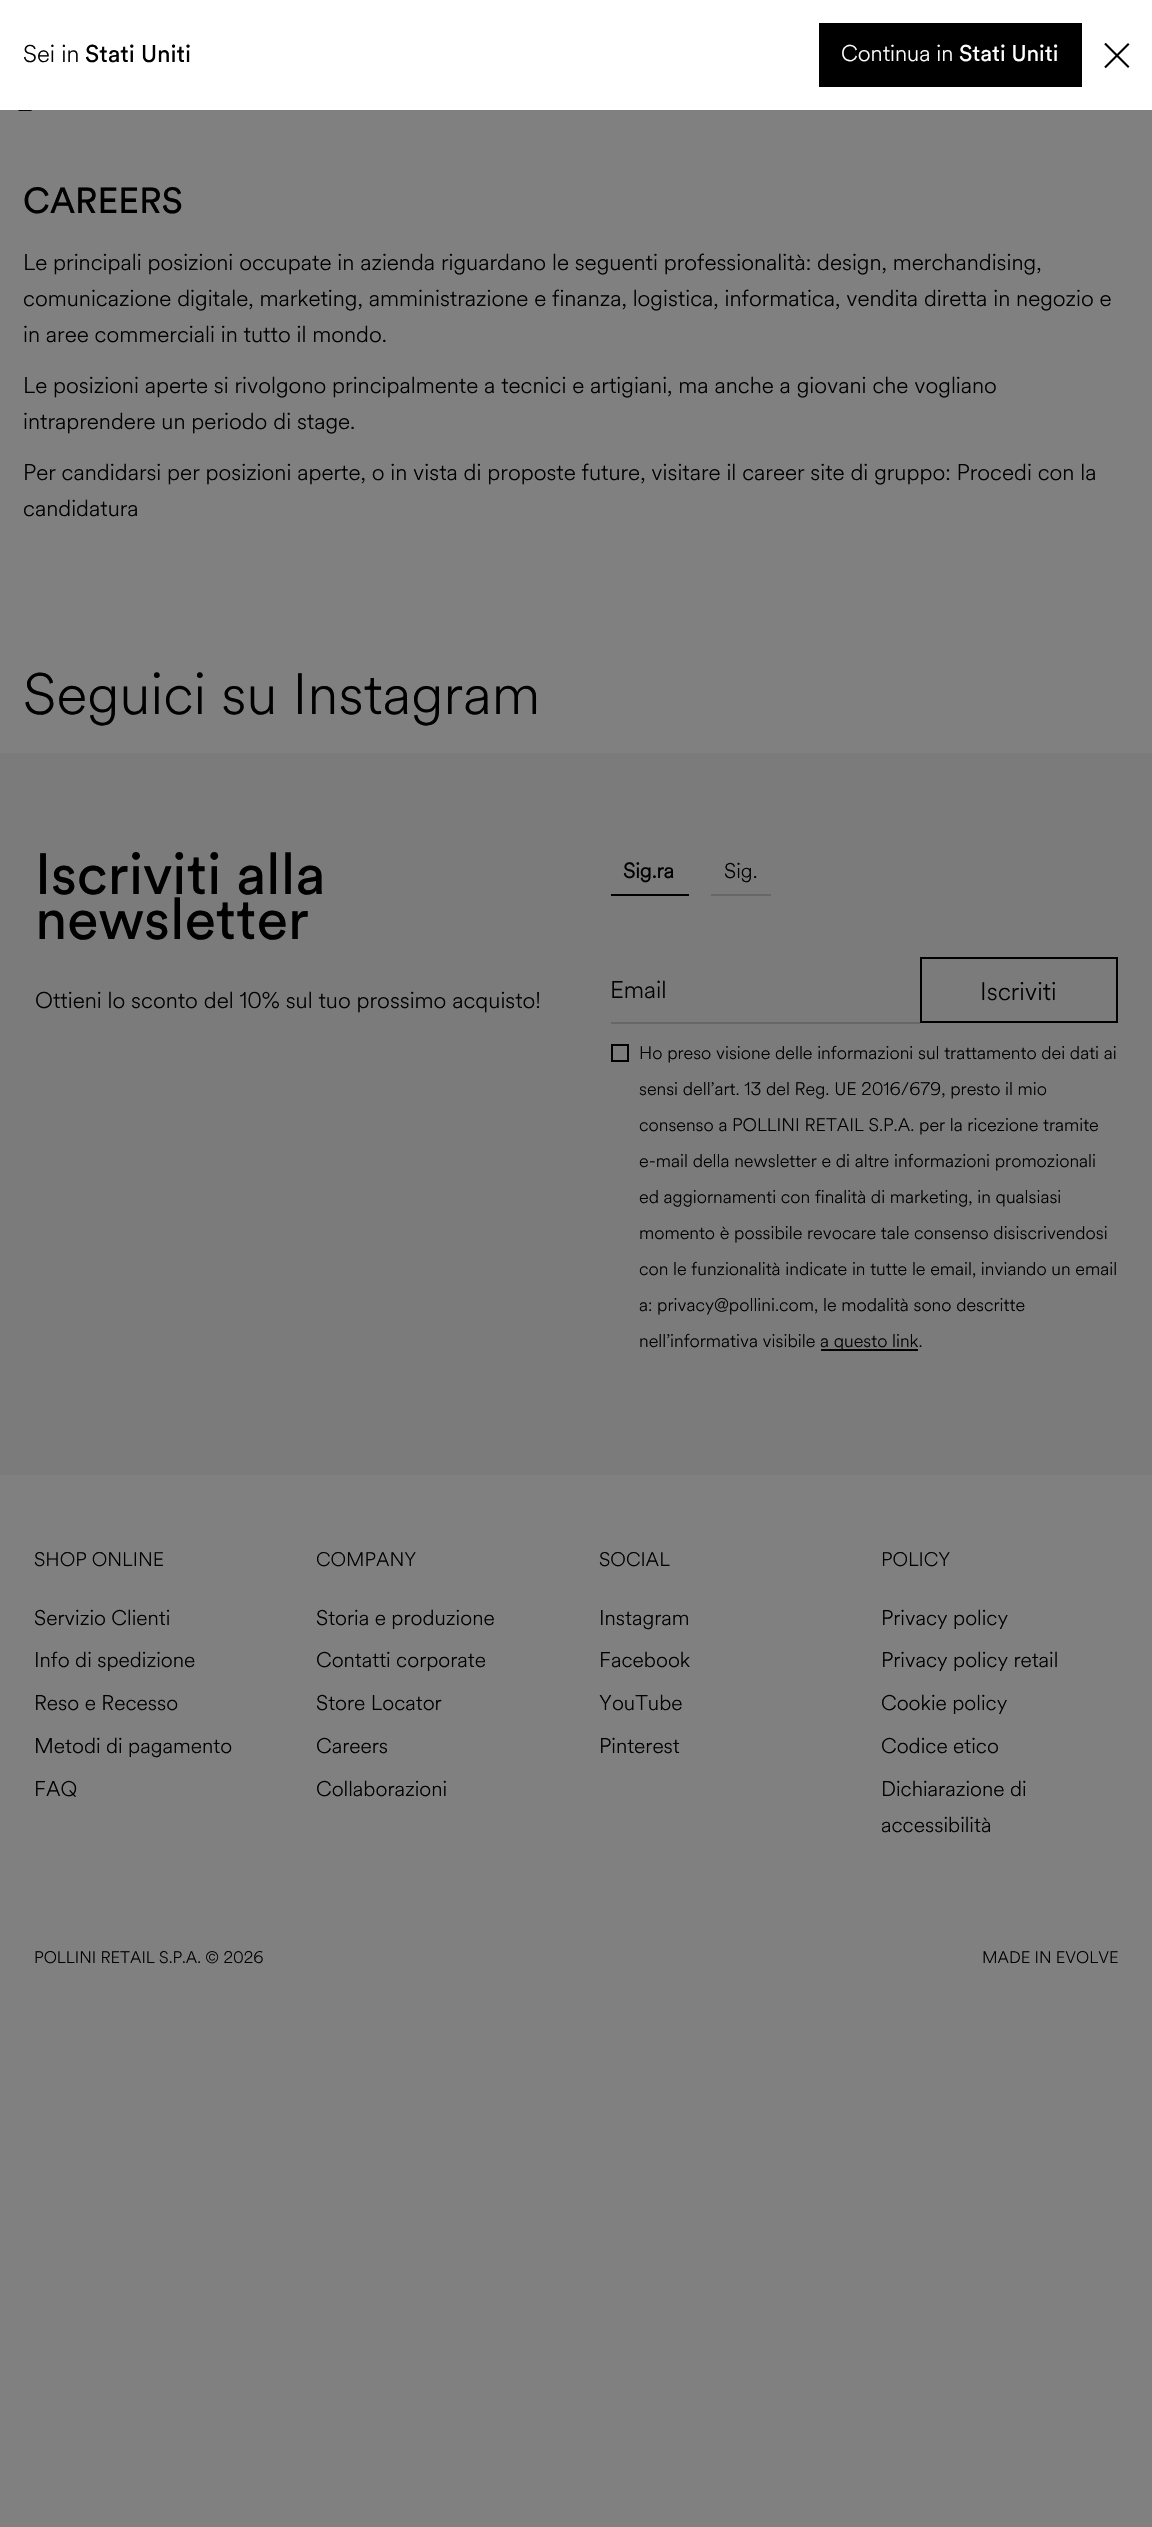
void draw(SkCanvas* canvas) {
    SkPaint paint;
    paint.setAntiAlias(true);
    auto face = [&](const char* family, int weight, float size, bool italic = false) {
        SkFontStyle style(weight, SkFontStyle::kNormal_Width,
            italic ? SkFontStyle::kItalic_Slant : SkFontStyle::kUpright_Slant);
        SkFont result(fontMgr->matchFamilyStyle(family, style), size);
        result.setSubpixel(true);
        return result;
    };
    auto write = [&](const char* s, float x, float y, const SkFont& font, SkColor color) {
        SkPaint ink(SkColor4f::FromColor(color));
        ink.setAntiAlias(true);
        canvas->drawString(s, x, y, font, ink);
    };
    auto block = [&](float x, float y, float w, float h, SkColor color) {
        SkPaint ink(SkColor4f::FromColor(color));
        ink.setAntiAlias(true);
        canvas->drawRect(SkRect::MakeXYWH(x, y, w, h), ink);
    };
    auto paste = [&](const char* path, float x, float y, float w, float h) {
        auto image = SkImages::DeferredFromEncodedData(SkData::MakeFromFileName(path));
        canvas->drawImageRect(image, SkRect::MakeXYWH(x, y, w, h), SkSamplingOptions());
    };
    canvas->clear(SkColorSetRGB(128, 128, 128));
    block(0, 0, 1152, 110, SK_ColorWHITE);
    auto kFont1 = face("Circular", 300, 24);
    write("Sei in", 23, 62, kFont1, SK_ColorBLACK);
    auto kFont2 = face("Circular", 400, 24);
    write("Stati Uniti", 85, 62, kFont2, SK_ColorBLACK);
    block(819, 23, 263, 64, SK_ColorBLACK);
    auto kFont3 = face("Circular", 300, 22.5f);
    write("Continua in", 841, 61, kFont3, SK_ColorWHITE);
    auto kFont4 = face("Circular", 400, 22.5f);
    write("Stati Uniti", 959, 61, kFont4, SK_ColorWHITE);
    paste("pic1.png", 1104, 42, 26, 27);
    paste("pic2.png", 18, 110, 14, 1);
    auto kFont5 = face("Circular", 400, 36);
    write("CAREERS", 23, 213, kFont5, SK_ColorBLACK);
    write("Le principali posizioni occupate in azienda riguardano le seguenti professionalità: design, merchandising,", 23, 270, kFont3, SK_ColorBLACK);
    write("comunicazione digitale, marketing, amministrazione e finanza, logistica, informatica, vendita diretta in negozio e", 23, 306, kFont3, SK_ColorBLACK);
    write("in aree commerciali in tutto il mondo.", 23, 342, kFont3, SK_ColorBLACK);
    write("Le posizioni aperte si rivolgono principalmente a tecnici e artigiani, ma anche a giovani che vogliano", 23, 393, kFont3, SK_ColorBLACK);
    write("intraprendere un periodo di stage.", 23, 429, kFont3, SK_ColorBLACK);
    write("Per candidarsi per posizioni aperte, o in vista di proposte future, visitare il career site di gruppo: Procedi con la", 23, 480, kFont3, SK_ColorBLACK);
    write("candidatura", 23, 516, kFont3, SK_ColorBLACK);
    auto kFont6 = face("Circular", 300, 57.5f);
    write("Seguici su Instagram", 23, 714, kFont6, SK_ColorBLACK);
    block(0, 753, 1152, 722, SkColorSetRGB(123, 123, 123));
    auto kFont7 = face("Circular", 400, 57.5f);
    write("Iscriviti alla", 35, 894, kFont7, SK_ColorBLACK);
    write("newsletter", 35, 939, kFont7, SK_ColorBLACK);
    write("Ottieni lo sconto del 10% sul tuo prossimo acquisto!", 35, 1008, kFont3, SK_ColorBLACK);
    auto kFont8 = face("Circular", 700, 21);
    write("Sig.ra", 623, 878, kFont8, SK_ColorBLACK);
    block(611, 894, 78, 2, SK_ColorBLACK);
    auto kFont9 = face("Circular", 300, 21);
    write("Sig.", 724, 878, kFont9, SK_ColorBLACK);
    block(711, 894, 60, 2, SkColorSetRGB(103, 103, 103));
    block(611, 1022, 309, 2, SkColorSetRGB(103, 103, 103));
    write("Email", 610, 998, kFont1, SK_ColorBLACK);
    paint.setStyle(SkPaint::kStroke_Style);
    paint.setStrokeWidth(2);
    paint.setColor(SK_ColorBLACK);
    canvas->drawRect(SkRect::MakeXYWH(921, 958, 196, 64), paint);
    auto kFont10 = face("Circular", 300, 25);
    write("Iscriviti", 980, 1000, kFont10, SK_ColorBLACK);
    canvas->drawRect(SkRect::MakeXYWH(612, 1045, 16, 16), paint);
    auto kFont11 = face("Circular", 300, 18);
    write("Ho preso visione delle informazioni sul trattamento dei dati ai", 639, 1059, kFont11, SK_ColorBLACK);
    write("sensi dell’art. 13 del Reg. UE 2016/679, presto il mio", 639, 1095, kFont11, SK_ColorBLACK);
    write("consenso a POLLINI RETAIL S.P.A. per la ricezione tramite", 639, 1131, kFont11, SK_ColorBLACK);
    write("e-mail della newsletter e di altre informazioni promozionali", 639, 1167, kFont11, SK_ColorBLACK);
    write("ed aggiornamenti con finalità di marketing, in qualsiasi", 639, 1203, kFont11, SK_ColorBLACK);
    write("momento è possibile revocare tale consenso disiscrivendosi", 639, 1239, kFont11, SK_ColorBLACK);
    write("con le funzionalità indicate in tutte le email, inviando un email", 639, 1275, kFont11, SK_ColorBLACK);
    write("a: privacy@pollini.com, le modalità sono descritte", 639, 1311, kFont11, SK_ColorBLACK);
    write("nell’informativa visibile", 639, 1347, kFont11, SK_ColorBLACK);
    block(821, 1349, 97, 2, SK_ColorBLACK);
    write("a questo link.", 820, 1347, kFont11, SK_ColorBLACK);
    auto kFont12 = face("Circular", 300, 19.5f);
    write("SHOP ONLINE", 34, 1566, kFont12, SK_ColorBLACK);
    write("Servizio Clienti", 34, 1625, kFont9, SK_ColorBLACK);
    write("Info di spedizione", 34, 1667, kFont9, SK_ColorBLACK);
    write("Reso e Recesso", 34, 1710, kFont9, SK_ColorBLACK);
    write("Metodi di pagamento", 34, 1753, kFont9, SK_ColorBLACK);
    write("FAQ", 34, 1796, kFont9, SK_ColorBLACK);
    write("COMPANY", 316, 1566, kFont12, SK_ColorBLACK);
    write("Storia e produzione", 316, 1625, kFont9, SK_ColorBLACK);
    write("Contatti corporate", 316, 1667, kFont9, SK_ColorBLACK);
    write("Store Locator", 316, 1710, kFont9, SK_ColorBLACK);
    write("Careers", 316, 1753, kFont9, SK_ColorBLACK);
    write("Collaborazioni", 316, 1796, kFont9, SK_ColorBLACK);
    write("SOCIAL", 599, 1566, kFont12, SK_ColorBLACK);
    write("Instagram", 599, 1625, kFont9, SK_ColorBLACK);
    write("Facebook", 599, 1667, kFont9, SK_ColorBLACK);
    write("YouTube", 599, 1710, kFont9, SK_ColorBLACK);
    write("Pinterest", 599, 1753, kFont9, SK_ColorBLACK);
    write("POLICY", 881, 1566, kFont12, SK_ColorBLACK);
    write("Privacy policy", 881, 1625, kFont9, SK_ColorBLACK);
    write("Privacy policy retail", 881, 1667, kFont9, SK_ColorBLACK);
    write("Cookie policy", 881, 1710, kFont9, SK_ColorBLACK);
    write("Codice etico", 881, 1753, kFont9, SK_ColorBLACK);
    write("Dichiarazione di", 881, 1796, kFont9, SK_ColorBLACK);
    write("accessibilità", 881, 1832, kFont9, SK_ColorBLACK);
    auto kFont13 = face("Circular", 300, 16.5f);
    write("POLLINI RETAIL S.P.A. © 2026", 34, 1963, kFont13, SK_ColorBLACK);
    write("MADE IN EVOLVE", 982, 1963, kFont13, SK_ColorBLACK);
}
